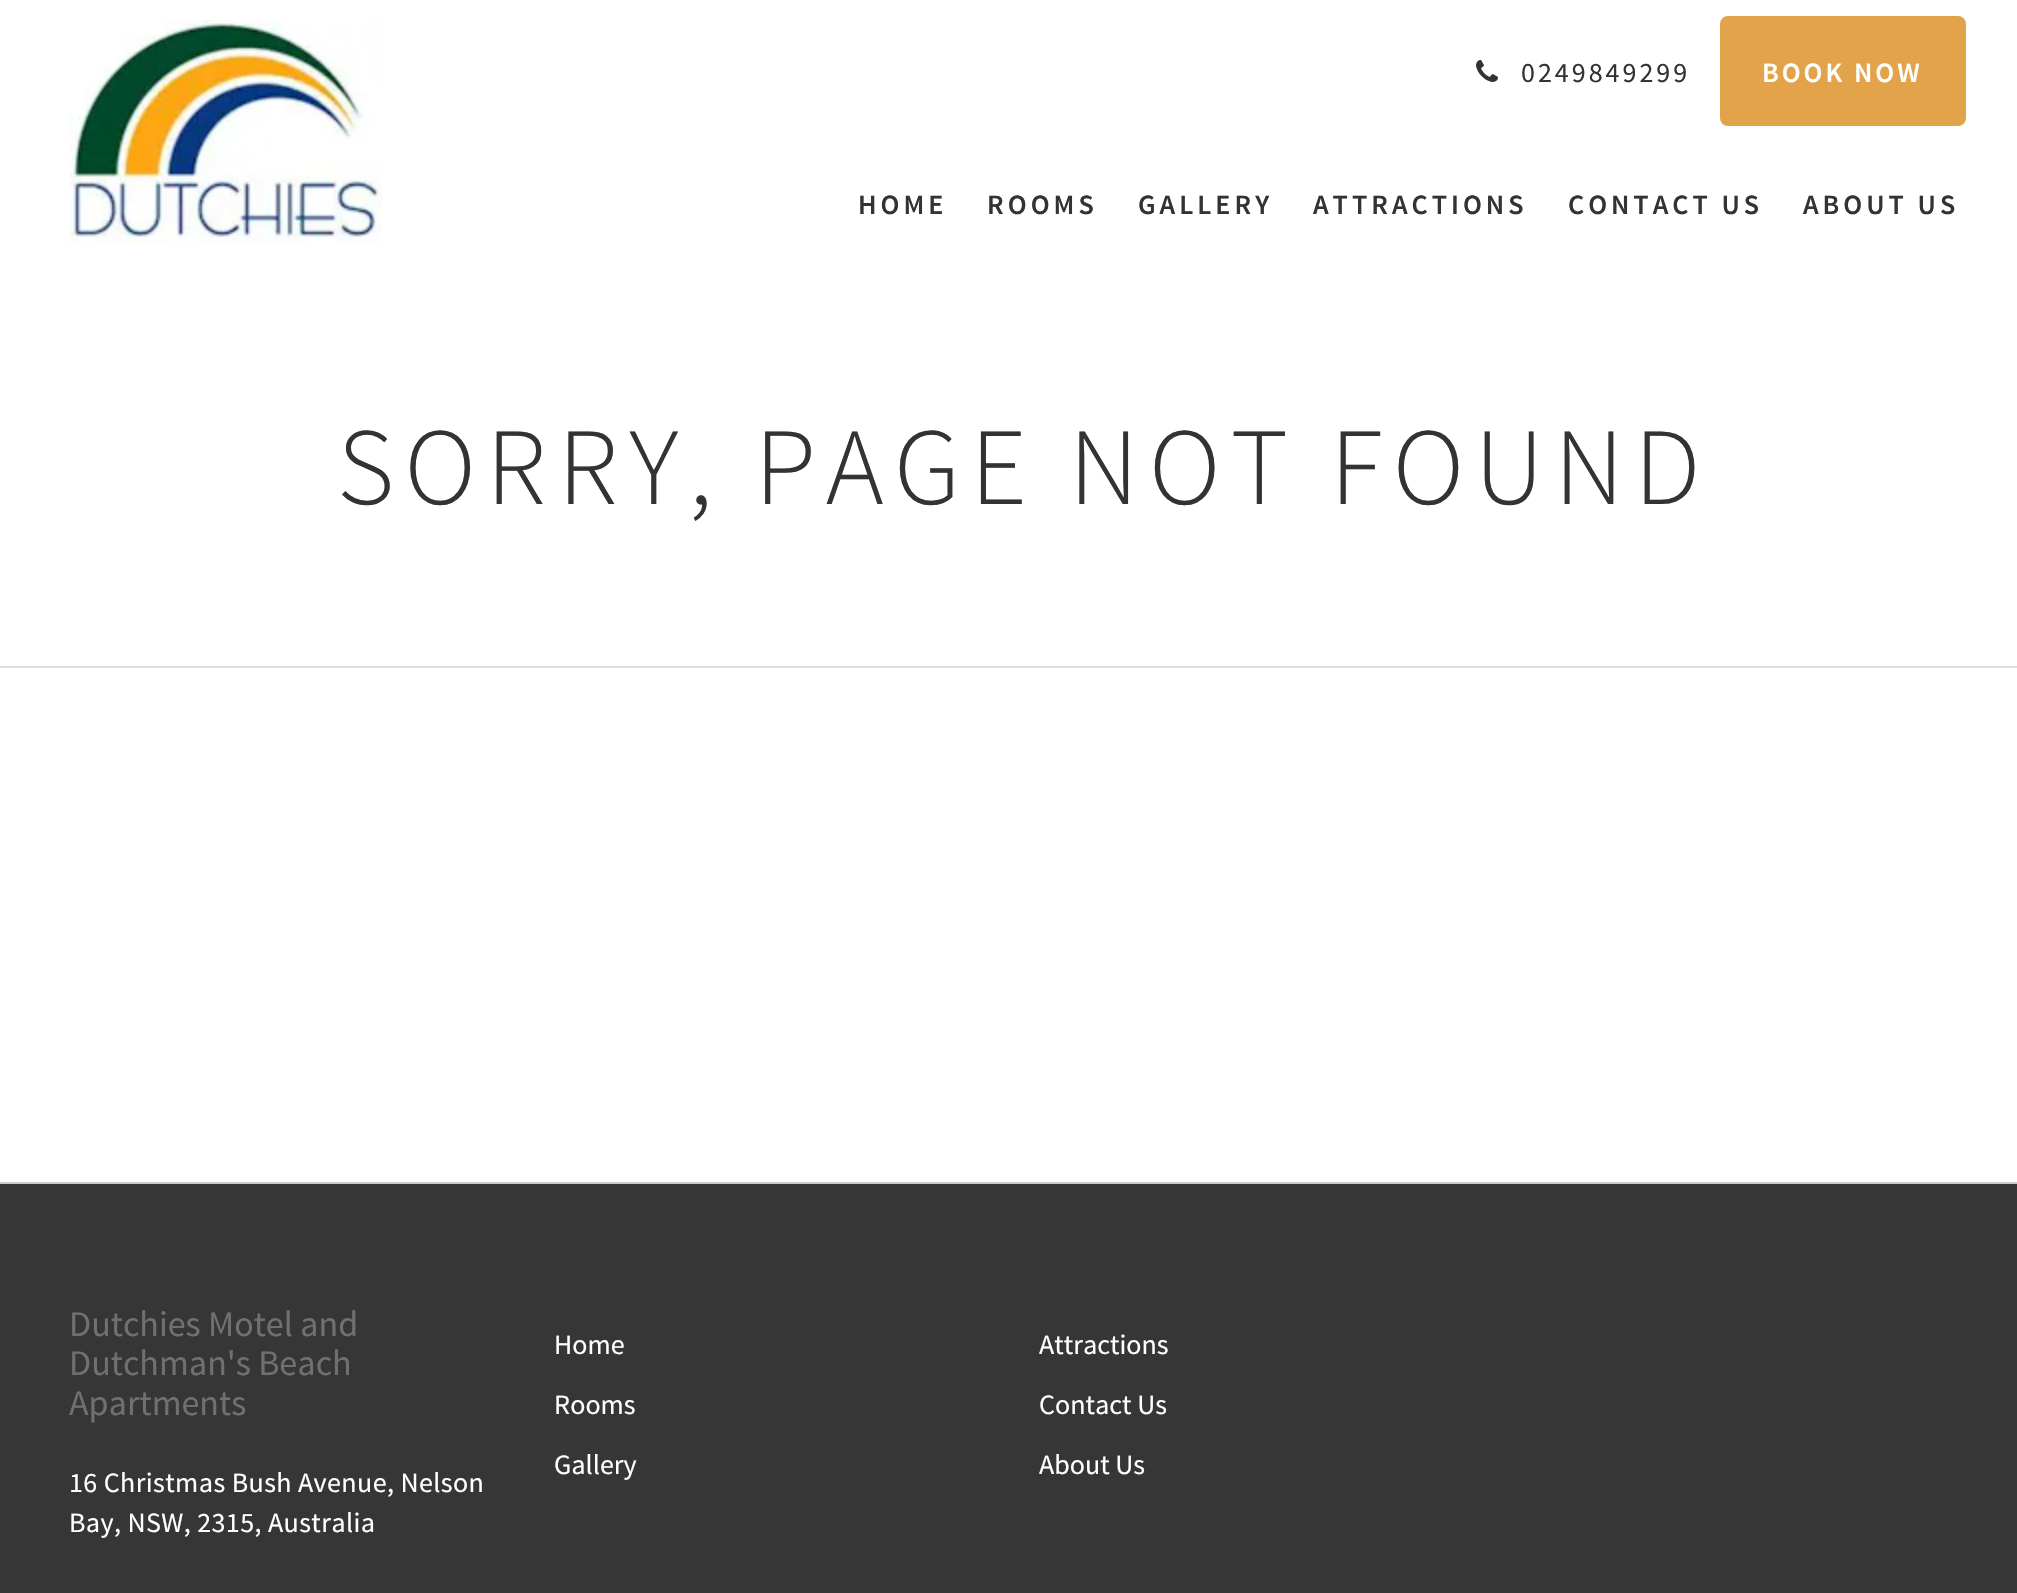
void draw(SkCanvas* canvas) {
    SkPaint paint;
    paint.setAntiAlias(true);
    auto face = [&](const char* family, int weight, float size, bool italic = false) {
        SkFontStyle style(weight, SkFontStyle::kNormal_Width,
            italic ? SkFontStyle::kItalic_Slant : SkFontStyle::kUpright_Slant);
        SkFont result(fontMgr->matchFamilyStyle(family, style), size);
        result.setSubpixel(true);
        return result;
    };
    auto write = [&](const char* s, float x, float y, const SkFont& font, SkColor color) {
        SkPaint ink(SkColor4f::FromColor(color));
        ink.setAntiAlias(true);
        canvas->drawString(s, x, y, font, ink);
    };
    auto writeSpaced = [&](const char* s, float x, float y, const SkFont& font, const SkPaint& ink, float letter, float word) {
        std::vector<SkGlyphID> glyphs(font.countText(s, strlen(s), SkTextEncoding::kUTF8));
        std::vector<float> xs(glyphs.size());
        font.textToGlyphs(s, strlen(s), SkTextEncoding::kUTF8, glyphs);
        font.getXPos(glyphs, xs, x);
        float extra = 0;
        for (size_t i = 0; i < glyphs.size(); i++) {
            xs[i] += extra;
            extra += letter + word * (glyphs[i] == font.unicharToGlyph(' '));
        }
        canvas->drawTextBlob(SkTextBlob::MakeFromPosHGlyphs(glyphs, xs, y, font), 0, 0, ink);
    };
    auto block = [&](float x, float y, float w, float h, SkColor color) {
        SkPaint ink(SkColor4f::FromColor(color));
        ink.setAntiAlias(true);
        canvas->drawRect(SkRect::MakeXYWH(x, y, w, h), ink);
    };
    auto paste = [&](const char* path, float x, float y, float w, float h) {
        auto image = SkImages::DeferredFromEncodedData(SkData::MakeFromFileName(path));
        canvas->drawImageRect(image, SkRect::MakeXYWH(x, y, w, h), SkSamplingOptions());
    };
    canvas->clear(SK_ColorWHITE);
    paste("pic1.png", 69, 20, 313, 224);
    paste("pic2.png", 1476, 60, 22, 22);
    auto kFont1 = face("Source Sans Pro", 400, 28);
    paint.setColor(SkColorSetRGB(51, 51, 51));
    writeSpaced("0249849299", 1521, 82, kFont1, paint, 3, 0);
    paint.setColor(SkColorSetRGB(226, 163, 75));
    canvas->drawRoundRect(SkRect::MakeXYWH(1721, 17, 244, 108), 7, 7, paint);
    paint.setStyle(SkPaint::kStroke_Style);
    paint.setStrokeWidth(2);
    canvas->drawRoundRect(SkRect::MakeXYWH(1721, 17, 244, 108), 7, 7, paint);
    auto kFont2 = face("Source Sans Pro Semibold", 600, 28);
    paint.setStyle(SkPaint::kFill_Style);
    paint.setColor(SK_ColorWHITE);
    writeSpaced("BOOK NOW", 1762, 82, kFont2, paint, 3, 0);
    paint.setColor(SkColorSetRGB(51, 51, 51));
    writeSpaced("HOME", 858, 214, kFont2, paint, 4, 0);
    writeSpaced("ROOMS", 987, 214, kFont2, paint, 4, 0);
    writeSpaced("GALLERY", 1138, 214, kFont2, paint, 4, 0);
    writeSpaced("ATTRACTIONS", 1313, 214, kFont2, paint, 4, 0);
    writeSpaced("CONTACT US", 1568, 214, kFont2, paint, 4, 0);
    writeSpaced("ABOUT US", 1803, 214, kFont2, paint, 4, 0);
    block(0, 666, 2017, 2, SkColorSetRGB(223, 222, 211));
    auto kFont3 = face("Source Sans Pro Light", 300, 110);
    writeSpaced("SORRY, PAGE NOT FOUND", 337, 504, kFont3, paint, 10, 0);
    block(0, 1184, 2017, 409, SkColorSetRGB(54, 54, 54));
    block(0, 1182, 2017, 2, SkColorSetRGB(204, 204, 204));
    auto kFont4 = face("Source Sans Pro", 400, 36);
    write("Dutchies Motel and", 69, 1336, kFont4, SkColorSetRGB(112, 112, 112));
    write("Dutchman's Beach", 69, 1375, kFont4, SkColorSetRGB(112, 112, 112));
    write("Apartments", 69, 1415, kFont4, SkColorSetRGB(112, 112, 112));
    paint.setColor(SK_ColorWHITE);
    writeSpaced("16 Christmas Bush Avenue, Nelson", 69, 1492, kFont1, paint, 0.4f, 0);
    writeSpaced("Bay, NSW, 2315, Australia", 69, 1532, kFont1, paint, 0.4f, 0);
    write("Home", 554, 1354, kFont1, SK_ColorWHITE);
    write("Rooms", 554, 1414, kFont1, SK_ColorWHITE);
    write("Gallery", 554, 1474, kFont1, SK_ColorWHITE);
    write("Attractions", 1039, 1354, kFont1, SK_ColorWHITE);
    write("Contact Us", 1039, 1414, kFont1, SK_ColorWHITE);
    write("About Us", 1039, 1474, kFont1, SK_ColorWHITE);
}
